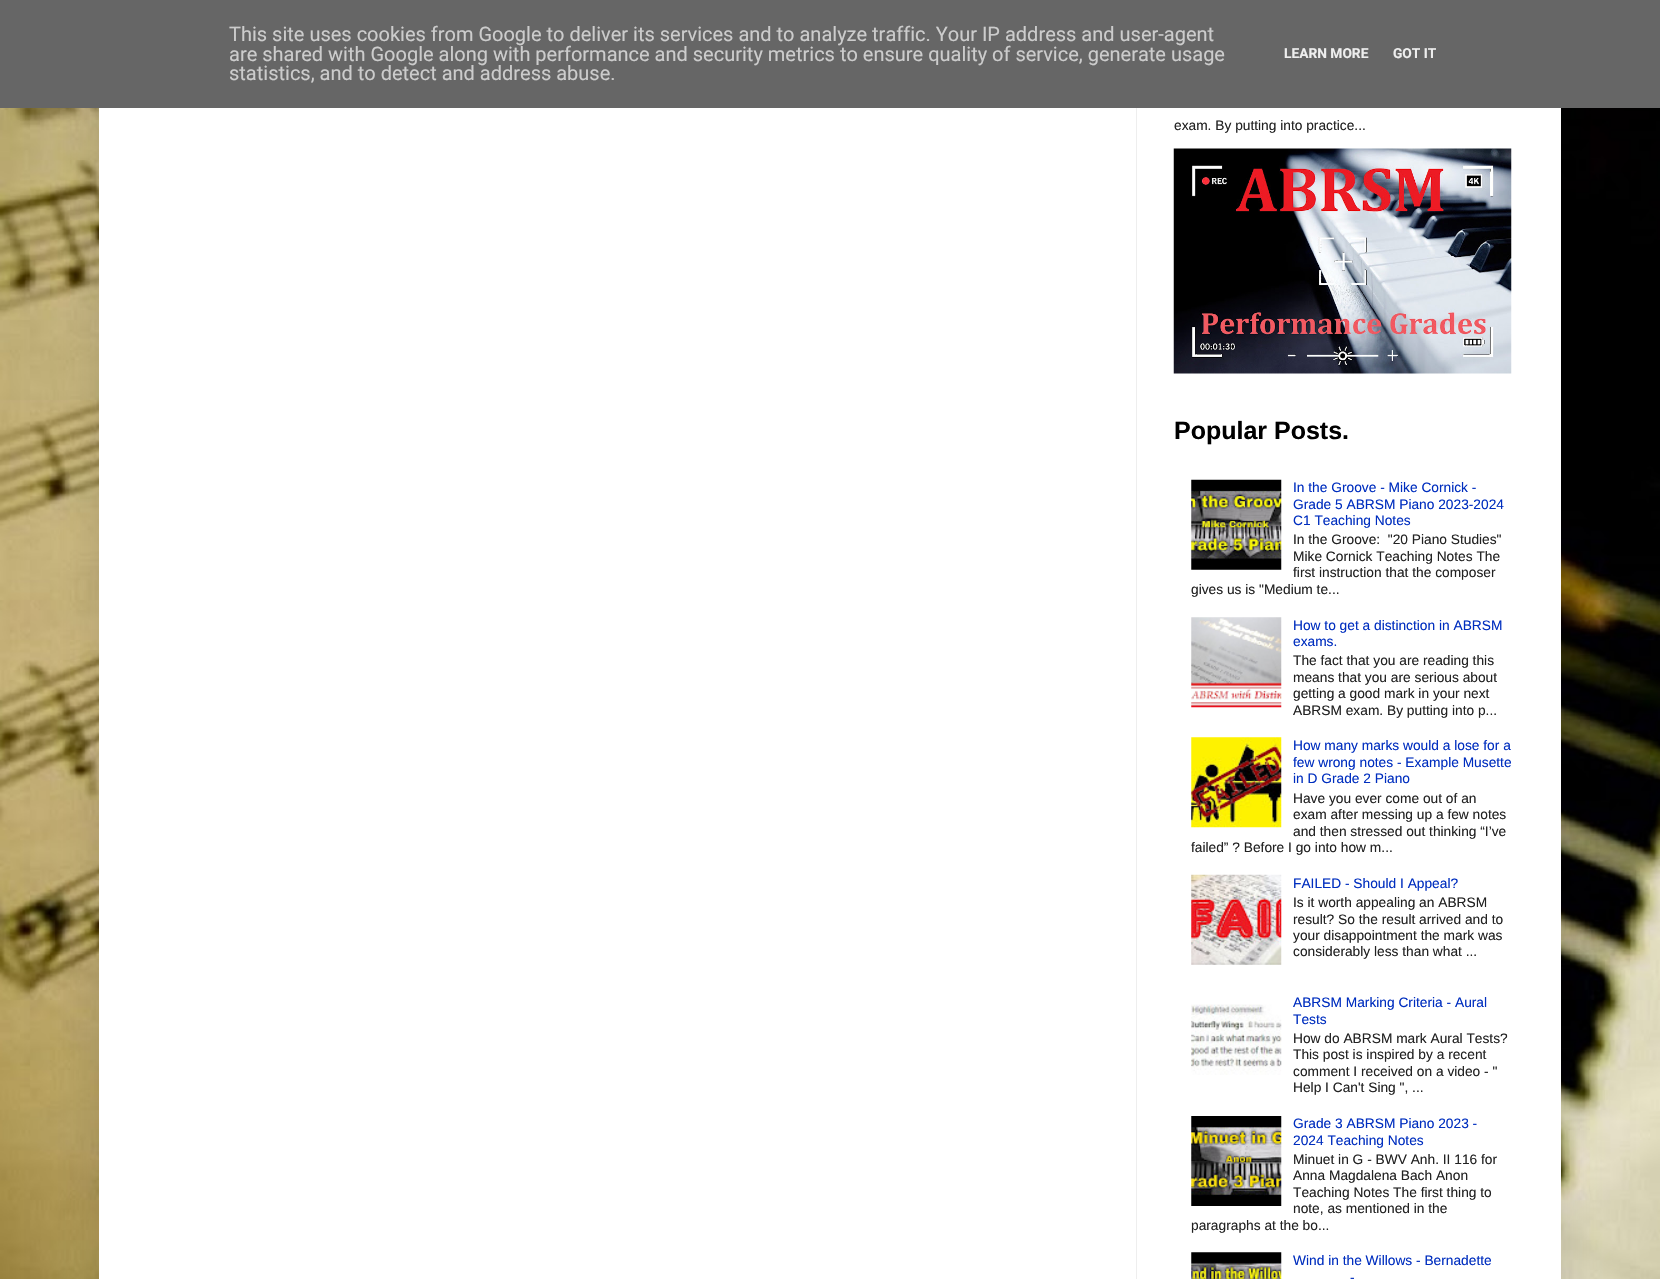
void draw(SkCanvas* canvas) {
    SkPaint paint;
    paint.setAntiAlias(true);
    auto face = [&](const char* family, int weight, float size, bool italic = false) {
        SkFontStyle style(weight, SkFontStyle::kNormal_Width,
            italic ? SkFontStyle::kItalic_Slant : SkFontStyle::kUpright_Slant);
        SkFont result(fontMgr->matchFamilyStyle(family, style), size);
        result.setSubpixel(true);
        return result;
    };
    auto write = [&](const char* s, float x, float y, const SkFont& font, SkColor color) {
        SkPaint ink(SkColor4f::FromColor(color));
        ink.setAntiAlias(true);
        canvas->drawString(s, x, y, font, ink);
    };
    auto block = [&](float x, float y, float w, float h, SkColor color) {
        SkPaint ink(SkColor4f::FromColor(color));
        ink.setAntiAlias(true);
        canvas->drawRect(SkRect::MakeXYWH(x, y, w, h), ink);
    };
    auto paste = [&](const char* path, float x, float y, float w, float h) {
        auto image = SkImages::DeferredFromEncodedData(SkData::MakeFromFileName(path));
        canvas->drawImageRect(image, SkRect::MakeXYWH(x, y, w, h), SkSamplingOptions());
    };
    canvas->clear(SK_ColorWHITE);
    paste("pic1.png", 0, 108, 1660, 1171);
    paint.setColor(SkColorSetARGB(38, 0, 0, 0));
    paint.setMaskFilter(SkMaskFilter::MakeBlur(kNormal_SkBlurStyle, 25));
    canvas->drawRect(SkRect::MakeXYWH(99, -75, 1462, 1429), paint);
    paint.setMaskFilter(nullptr);
    block(0, 0, 1660, 108, SkColorSetRGB(102, 102, 102));
    auto kFont1 = face("Roboto", 400, 20);
    write("This site uses cookies from Google to deliver its services and to analyze traffic. Your IP address and user-agent", 229, 41, kFont1, SkColorSetRGB(204, 204, 204));
    write("are shared with Google along with performance and security metrics to ensure quality of service, generate usage", 229, 61, kFont1, SkColorSetRGB(204, 204, 204));
    write("statistics, and to detect and address abuse.", 229, 80, kFont1, SkColorSetRGB(204, 204, 204));
    auto kFont2 = face("Roboto", 700, 13.75f);
    write("LEARN MORE", 1284, 58, kFont2, SkColorSetRGB(238, 238, 238));
    write("GOT IT", 1393, 58, kFont2, SkColorSetRGB(238, 238, 238));
    block(99, 108, 1462, 1171, SK_ColorWHITE);
    block(1136, 108, 1, 1171, SkColorSetRGB(238, 238, 238));
    auto kFont3 = face("Liberation Sans", 400, 13.75f);
    write("exam. By putting into practice...", 1174, 130, kFont3, SkColorSetRGB(34, 34, 34));
    paste("pic2.png", 1173, 148, 339, 226);
    auto kFont4 = face("Liberation Sans", 700, 25);
    write("Popular Posts.", 1174, 439, kFont4, SK_ColorBLACK);
    paste("pic3.png", 1191, 479, 91, 91);
    write("In the Groove - Mike Cornick -", 1293, 492, kFont3, SkColorSetRGB(0, 46, 191));
    write("Grade 5 ABRSM Piano 2023-2024", 1293, 509, kFont3, SkColorSetRGB(0, 46, 191));
    write("C1 Teaching Notes", 1293, 525, kFont3, SkColorSetRGB(0, 46, 191));
    write("In the Groove:  \"20 Piano Studies\"", 1293, 544, kFont3, SkColorSetRGB(34, 34, 34));
    write("Mike Cornick Teaching Notes The", 1293, 561, kFont3, SkColorSetRGB(34, 34, 34));
    write("first instruction that the composer", 1293, 577, kFont3, SkColorSetRGB(34, 34, 34));
    write("gives us is \"Medium te...", 1191, 594, kFont3, SkColorSetRGB(34, 34, 34));
    paste("pic4.png", 1191, 617, 91, 91);
    write("How to get a distinction in ABRSM", 1293, 630, kFont3, SkColorSetRGB(0, 46, 191));
    write("exams.", 1293, 646, kFont3, SkColorSetRGB(0, 46, 191));
    write("The fact that you are reading this", 1293, 665, kFont3, SkColorSetRGB(34, 34, 34));
    write("means that you are serious about", 1293, 682, kFont3, SkColorSetRGB(34, 34, 34));
    write("getting a good mark in your next", 1293, 698, kFont3, SkColorSetRGB(34, 34, 34));
    write("ABRSM exam. By putting into p...", 1293, 715, kFont3, SkColorSetRGB(34, 34, 34));
    paste("pic5.png", 1191, 737, 91, 91);
    write("How many marks would a lose for a", 1293, 750, kFont3, SkColorSetRGB(0, 46, 191));
    write("few wrong notes - Example Musette", 1293, 767, kFont3, SkColorSetRGB(0, 46, 191));
    write("in D Grade 2 Piano", 1293, 783, kFont3, SkColorSetRGB(0, 46, 191));
    write("Have you ever come out of an", 1293, 803, kFont3, SkColorSetRGB(34, 34, 34));
    write("exam after messing up a few notes", 1293, 819, kFont3, SkColorSetRGB(34, 34, 34));
    write("and then stressed out thinking “I’ve", 1293, 836, kFont3, SkColorSetRGB(34, 34, 34));
    write("failed” ? Before I go into how m...", 1191, 852, kFont3, SkColorSetRGB(34, 34, 34));
    paste("pic6.png", 1191, 874, 91, 91);
    write("FAILED - Should I Appeal?", 1293, 888, kFont3, SkColorSetRGB(0, 46, 191));
    write("Is it worth appealing an ABRSM", 1293, 907, kFont3, SkColorSetRGB(34, 34, 34));
    write("result? So the result arrived and to", 1293, 924, kFont3, SkColorSetRGB(34, 34, 34));
    write("your disappointment the mark was", 1293, 940, kFont3, SkColorSetRGB(34, 34, 34));
    write("considerably less than what ...", 1293, 956, kFont3, SkColorSetRGB(34, 34, 34));
    paste("pic7.png", 1191, 1004, 91, 71);
    write("ABRSM Marking Criteria - Aural", 1293, 1007, kFont3, SkColorSetRGB(0, 46, 191));
    write("Tests", 1293, 1024, kFont3, SkColorSetRGB(0, 46, 191));
    write("How do ABRSM mark Aural Tests?", 1293, 1043, kFont3, SkColorSetRGB(34, 34, 34));
    write("This post is inspired by a recent", 1293, 1059, kFont3, SkColorSetRGB(34, 34, 34));
    write("comment I received on a video - \"", 1293, 1076, kFont3, SkColorSetRGB(34, 34, 34));
    write("Help I Can't Sing \", ...", 1293, 1092, kFont3, SkColorSetRGB(34, 34, 34));
    paste("pic8.png", 1191, 1116, 91, 90);
    write("Grade 3 ABRSM Piano 2023 -", 1293, 1128, kFont3, SkColorSetRGB(0, 46, 191));
    write("2024 Teaching Notes", 1293, 1145, kFont3, SkColorSetRGB(0, 46, 191));
    write("Minuet in G - BWV Anh. II 116 for", 1293, 1164, kFont3, SkColorSetRGB(34, 34, 34));
    write("Anna Magdalena Bach Anon", 1293, 1180, kFont3, SkColorSetRGB(34, 34, 34));
    write("Teaching Notes The first thing to", 1293, 1197, kFont3, SkColorSetRGB(34, 34, 34));
    write("note, as mentioned in the", 1293, 1213, kFont3, SkColorSetRGB(34, 34, 34));
    write("paragraphs at the bo...", 1191, 1230, kFont3, SkColorSetRGB(34, 34, 34));
    paste("pic9.png", 1191, 1252, 91, 27);
    write("Wind in the Willows - Bernadette", 1293, 1265, kFont3, SkColorSetRGB(0, 46, 191));
    write("-", 1350, 1282, kFont3, SkColorSetRGB(0, 46, 191));
}
